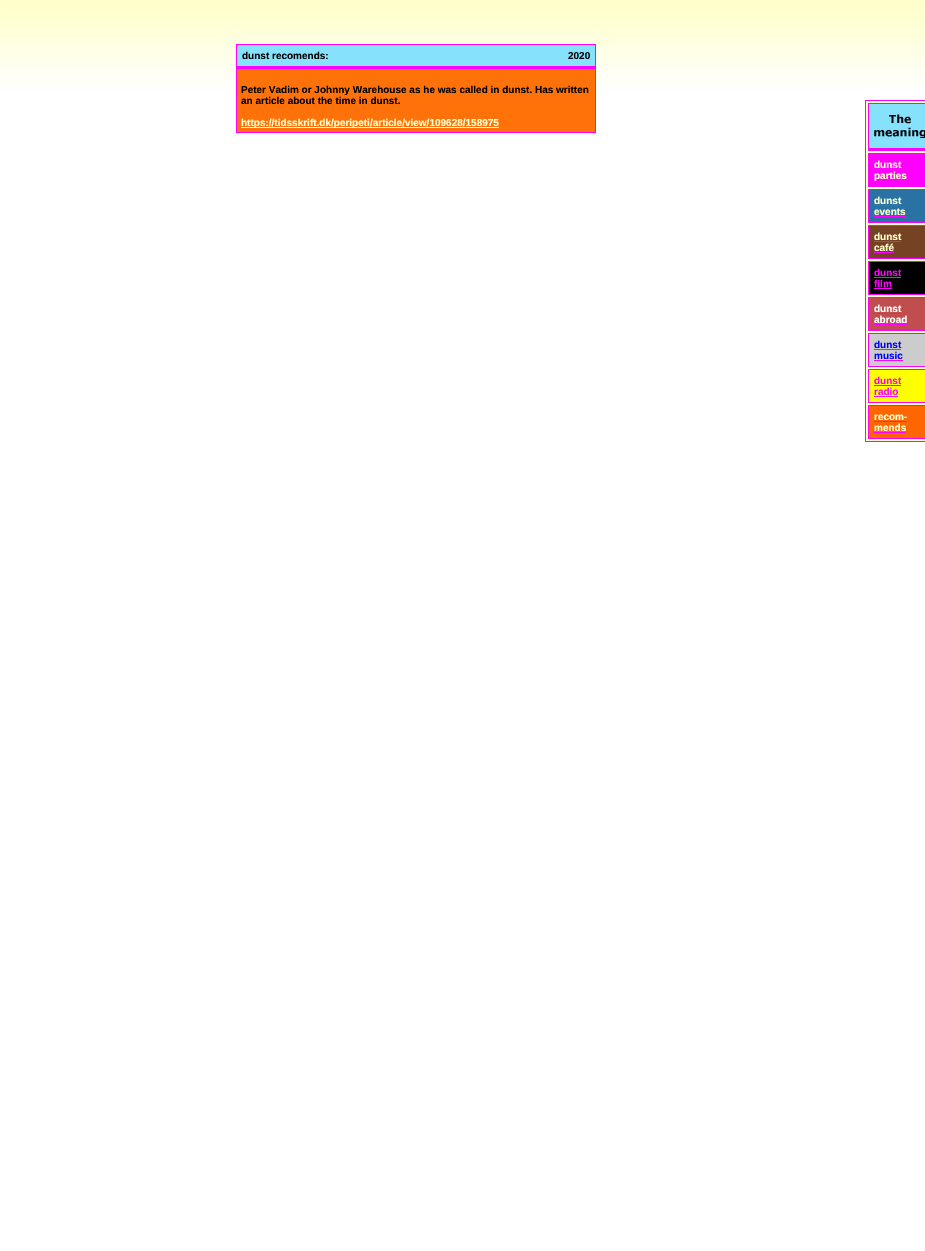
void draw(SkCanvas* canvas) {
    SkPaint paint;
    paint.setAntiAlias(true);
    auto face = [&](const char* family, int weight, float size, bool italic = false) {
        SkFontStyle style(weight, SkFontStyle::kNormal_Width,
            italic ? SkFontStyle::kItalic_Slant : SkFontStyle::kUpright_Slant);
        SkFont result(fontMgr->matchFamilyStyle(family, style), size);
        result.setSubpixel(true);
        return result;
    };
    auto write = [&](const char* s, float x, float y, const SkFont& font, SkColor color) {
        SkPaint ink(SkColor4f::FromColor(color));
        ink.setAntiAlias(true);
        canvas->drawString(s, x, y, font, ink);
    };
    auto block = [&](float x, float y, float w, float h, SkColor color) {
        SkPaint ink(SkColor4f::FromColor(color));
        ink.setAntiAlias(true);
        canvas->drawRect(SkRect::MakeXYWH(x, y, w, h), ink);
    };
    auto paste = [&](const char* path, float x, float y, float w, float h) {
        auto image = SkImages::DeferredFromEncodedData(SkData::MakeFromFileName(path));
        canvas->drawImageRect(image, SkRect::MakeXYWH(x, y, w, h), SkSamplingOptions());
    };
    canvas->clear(SK_ColorWHITE);
    paste("pic1.png", 0, 0, 925, 90);
    auto kFont1 = face("Liberation Sans", 400, 10);
    write(".", 0, 9, kFont1, SK_ColorWHITE);
    paint.setStyle(SkPaint::kStroke_Style);
    paint.setStrokeWidth(1);
    paint.setColor(SkColorSetRGB(255, 0, 255));
    canvas->drawRect(SkRect::MakeXYWH(236.5f, 44.5f, 359, 88), paint);
    block(237, 45, 358, 21, SkColorSetRGB(133, 225, 252));
    block(237, 66, 358, 3, SkColorSetRGB(255, 0, 255));
    auto kFont2 = face("Liberation Sans", 700, 10);
    write("dunst recomends:", 242, 59, kFont2, SK_ColorBLACK);
    write("2020", 568, 59, kFont2, SK_ColorBLACK);
    block(237, 69, 358, 63, SkColorSetRGB(255, 114, 10));
    write("Peter Vadim or Johnny Warehouse as he was called in dunst. Has written", 241, 93, kFont2, SK_ColorBLACK);
    write("an article about the time in dunst.", 241, 104, kFont2, SK_ColorBLACK);
    block(241, 127, 258, 1, SkColorSetRGB(255, 255, 204));
    write("https://tidsskrift.dk/peripeti/article/view/109628/158975", 241, 126, kFont2, SkColorSetRGB(255, 255, 204));
    paint.setStyle(SkPaint::kFill_Style);
    paint.setColor(SkColorSetRGB(255, 255, 204));
    canvas->drawRect(SkRect::MakeXYWH(865.5f, 100.5f, 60, 341), paint);
    paint.setStyle(SkPaint::kStroke_Style);
    paint.setColor(SkColorSetRGB(255, 0, 255));
    canvas->drawRect(SkRect::MakeXYWH(865.5f, 100.5f, 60, 341), paint);
    block(869, 104, 56, 44, SkColorSetRGB(133, 225, 252));
    block(868, 103, 57, 1, SkColorSetRGB(255, 0, 255));
    block(868, 148, 57, 3, SkColorSetRGB(255, 0, 255));
    block(868, 103, 1, 48, SkColorSetRGB(255, 0, 255));
    paste("pic2.png", 874, 114, 51, 24);
    block(868, 153, 57, 34, SkColorSetRGB(255, 0, 255));
    write("dunst", 874, 168, kFont2, SkColorSetRGB(255, 255, 204));
    write("parties", 874, 179, kFont2, SkColorSetRGB(255, 255, 204));
    paint.setStyle(SkPaint::kFill_Style);
    paint.setColor(SkColorSetRGB(41, 114, 163));
    canvas->drawRect(SkRect::MakeXYWH(868.5f, 189.5f, 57, 33), paint);
    paint.setStyle(SkPaint::kStroke_Style);
    paint.setColor(SkColorSetRGB(255, 0, 255));
    canvas->drawRect(SkRect::MakeXYWH(868.5f, 189.5f, 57, 33), paint);
    write("dunst", 874, 204, kFont2, SkColorSetRGB(255, 255, 204));
    block(874, 205, 27, 1, SkColorSetRGB(255, 0, 255));
    write("events", 874, 215, kFont2, SkColorSetRGB(255, 255, 204));
    block(874, 216, 32, 1, SkColorSetRGB(255, 0, 255));
    paint.setStyle(SkPaint::kFill_Style);
    paint.setColor(SkColorSetRGB(117, 66, 35));
    canvas->drawRect(SkRect::MakeXYWH(868.5f, 225.5f, 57, 33), paint);
    paint.setStyle(SkPaint::kStroke_Style);
    paint.setColor(SkColorSetRGB(255, 0, 255));
    canvas->drawRect(SkRect::MakeXYWH(868.5f, 225.5f, 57, 33), paint);
    write("dunst", 874, 240, kFont2, SkColorSetRGB(255, 255, 204));
    block(874, 241, 27, 1, SkColorSetRGB(255, 0, 255));
    write("café", 874, 251, kFont2, SkColorSetRGB(255, 255, 204));
    block(874, 252, 20, 1, SkColorSetRGB(255, 0, 255));
    paint.setStyle(SkPaint::kFill_Style);
    paint.setColor(SK_ColorBLACK);
    canvas->drawRect(SkRect::MakeXYWH(868.5f, 261.5f, 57, 33), paint);
    paint.setStyle(SkPaint::kStroke_Style);
    paint.setColor(SkColorSetRGB(255, 0, 255));
    canvas->drawRect(SkRect::MakeXYWH(868.5f, 261.5f, 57, 33), paint);
    write("dunst", 874, 276, kFont2, SkColorSetRGB(255, 0, 255));
    block(874, 277, 27, 1, SkColorSetRGB(255, 0, 255));
    write("film", 874, 287, kFont2, SkColorSetRGB(255, 0, 255));
    block(874, 288, 18, 1, SkColorSetRGB(255, 0, 255));
    paint.setStyle(SkPaint::kFill_Style);
    paint.setColor(SkColorSetRGB(192, 78, 78));
    canvas->drawRect(SkRect::MakeXYWH(868.5f, 297.5f, 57, 33), paint);
    paint.setStyle(SkPaint::kStroke_Style);
    paint.setColor(SkColorSetRGB(255, 0, 255));
    canvas->drawRect(SkRect::MakeXYWH(868.5f, 297.5f, 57, 33), paint);
    write("dunst", 874, 312, kFont2, SK_ColorWHITE);
    block(874, 313, 27, 1, SkColorSetRGB(255, 0, 255));
    write("abroad", 874, 323, kFont2, SK_ColorWHITE);
    block(874, 324, 33, 1, SkColorSetRGB(255, 0, 255));
    paint.setStyle(SkPaint::kFill_Style);
    paint.setColor(SkColorSetRGB(204, 204, 204));
    canvas->drawRect(SkRect::MakeXYWH(868.5f, 333.5f, 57, 33), paint);
    paint.setStyle(SkPaint::kStroke_Style);
    paint.setColor(SkColorSetRGB(255, 0, 255));
    canvas->drawRect(SkRect::MakeXYWH(868.5f, 333.5f, 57, 33), paint);
    write("dunst", 874, 348, kFont2, SkColorSetRGB(0, 0, 255));
    block(874, 349, 27, 1, SkColorSetRGB(255, 0, 255));
    write("music", 874, 359, kFont2, SkColorSetRGB(0, 0, 255));
    block(874, 360, 29, 1, SkColorSetRGB(255, 0, 255));
    paint.setStyle(SkPaint::kFill_Style);
    paint.setColor(SkColorSetRGB(255, 255, 0));
    canvas->drawRect(SkRect::MakeXYWH(868.5f, 369.5f, 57, 33), paint);
    paint.setStyle(SkPaint::kStroke_Style);
    paint.setColor(SkColorSetRGB(255, 0, 255));
    canvas->drawRect(SkRect::MakeXYWH(868.5f, 369.5f, 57, 33), paint);
    write("dunst", 874, 384, kFont2, SkColorSetRGB(255, 0, 255));
    block(874, 385, 27, 1, SkColorSetRGB(255, 0, 255));
    write("radio", 874, 395, kFont2, SkColorSetRGB(255, 0, 255));
    block(874, 396, 24, 1, SkColorSetRGB(255, 0, 255));
    paint.setStyle(SkPaint::kFill_Style);
    paint.setColor(SkColorSetRGB(255, 102, 0));
    canvas->drawRect(SkRect::MakeXYWH(868.5f, 405.5f, 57, 33), paint);
    paint.setStyle(SkPaint::kStroke_Style);
    paint.setColor(SkColorSetRGB(255, 0, 255));
    canvas->drawRect(SkRect::MakeXYWH(868.5f, 405.5f, 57, 33), paint);
    write("recom-", 874, 420, kFont2, SkColorSetRGB(255, 255, 204));
    block(874, 421, 33, 1, SkColorSetRGB(255, 0, 255));
    write("mends", 874, 431, kFont2, SkColorSetRGB(255, 255, 204));
    block(874, 432, 32, 1, SkColorSetRGB(255, 0, 255));
}
